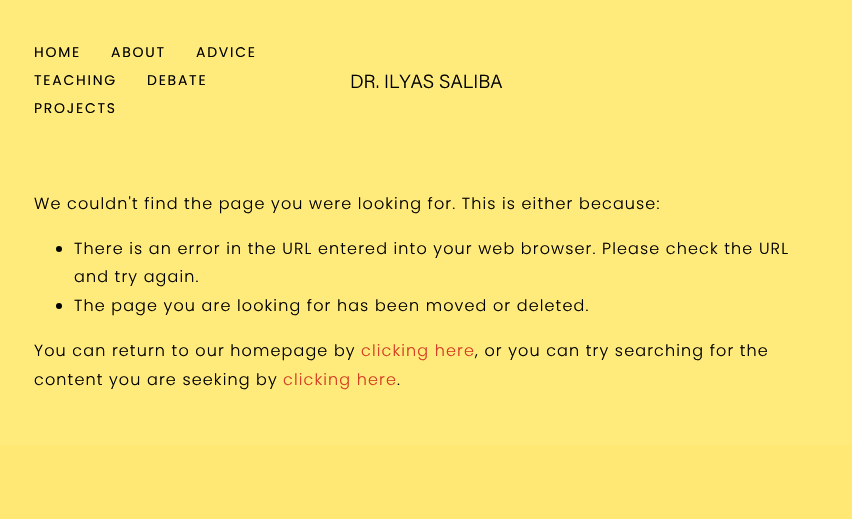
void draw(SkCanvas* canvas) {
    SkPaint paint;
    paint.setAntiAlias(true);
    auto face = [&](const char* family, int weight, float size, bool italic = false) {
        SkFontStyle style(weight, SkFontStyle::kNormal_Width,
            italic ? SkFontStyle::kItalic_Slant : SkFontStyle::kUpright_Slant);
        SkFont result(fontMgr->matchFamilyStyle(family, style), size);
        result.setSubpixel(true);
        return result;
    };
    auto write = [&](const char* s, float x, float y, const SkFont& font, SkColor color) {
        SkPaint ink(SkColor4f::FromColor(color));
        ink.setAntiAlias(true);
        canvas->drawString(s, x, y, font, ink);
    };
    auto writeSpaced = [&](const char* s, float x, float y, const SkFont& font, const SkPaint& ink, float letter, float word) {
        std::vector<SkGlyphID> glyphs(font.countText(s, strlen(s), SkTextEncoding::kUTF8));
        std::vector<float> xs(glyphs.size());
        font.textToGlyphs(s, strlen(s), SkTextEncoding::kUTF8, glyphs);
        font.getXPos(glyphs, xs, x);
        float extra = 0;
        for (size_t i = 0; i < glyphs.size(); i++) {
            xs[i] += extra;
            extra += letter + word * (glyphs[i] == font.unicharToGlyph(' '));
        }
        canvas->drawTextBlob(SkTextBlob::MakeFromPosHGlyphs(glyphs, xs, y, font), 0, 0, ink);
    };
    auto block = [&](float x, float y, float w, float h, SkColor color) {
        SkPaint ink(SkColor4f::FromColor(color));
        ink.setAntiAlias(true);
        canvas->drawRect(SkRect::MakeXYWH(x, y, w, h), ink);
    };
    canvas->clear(SkColorSetRGB(255, 234, 124));
    auto kFont1 = face("Poppins", 400, 14);
    paint.setColor(SK_ColorBLACK);
    writeSpaced("HOME", 34, 57, kFont1, paint, 1.75f, 0);
    writeSpaced("ABOUT", 111, 57, kFont1, paint, 1.75f, 0);
    writeSpaced("ADVICE", 196, 57, kFont1, paint, 1.75f, 0);
    writeSpaced("TEACHING", 34, 85, kFont1, paint, 1.75f, 0);
    writeSpaced("DEBATE", 147, 85, kFont1, paint, 1.75f, 0);
    writeSpaced("PROJECTS", 34, 113, kFont1, paint, 1.75f, 0);
    auto kFont2 = face("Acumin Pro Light", 300, 19);
    write("DR. ILYAS SALIBA", 350, 88, kFont2, SK_ColorBLACK);
    auto kFont3 = face("Poppins", 300, 16);
    writeSpaced("We couldn't find the page you were looking for. This is either because:", 34, 209, kFont3, paint, 1.12f, 0);
    canvas->drawCircle(59, 249, 3, paint);
    writeSpaced("There is an error in the URL entered into your web browser. Please check the URL", 74, 254, kFont3, paint, 1.12f, 0);
    writeSpaced("and try again.", 74, 282, kFont3, paint, 1.12f, 0);
    canvas->drawCircle(59, 306, 3, paint);
    writeSpaced("The page you are looking for has been moved or deleted.", 74, 311, kFont3, paint, 1.12f, 0);
    writeSpaced("You can return to our homepage by", 34, 356, kFont3, paint, 1.12f, 0);
    paint.setColor(SkColorSetRGB(213, 61, 34));
    writeSpaced("clicking here", 361, 356, kFont3, paint, 1.12f, 0);
    paint.setColor(SK_ColorBLACK);
    writeSpaced(", or you can try searching for the", 475, 356, kFont3, paint, 1.12f, 0);
    writeSpaced("content you are seeking by", 34, 385, kFont3, paint, 1.12f, 0);
    paint.setColor(SkColorSetRGB(213, 61, 34));
    writeSpaced("clicking here", 283, 385, kFont3, paint, 1.12f, 0);
    paint.setColor(SK_ColorBLACK);
    writeSpaced(".", 397, 385, kFont3, paint, 1.12f, 0);
    block(0, 445, 852, 74, SkColorSetRGB(255, 233, 116));
}
